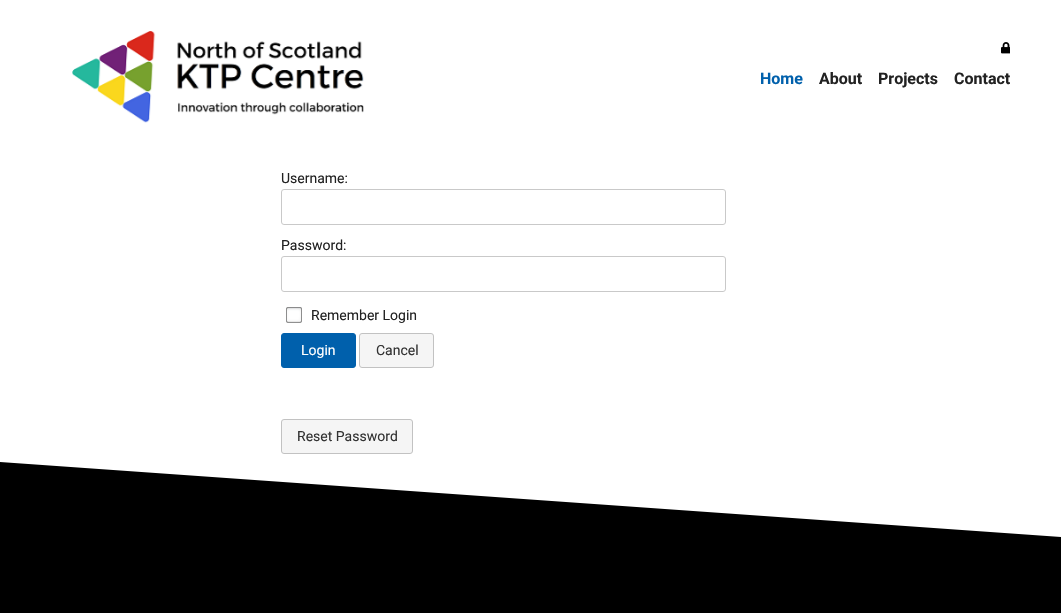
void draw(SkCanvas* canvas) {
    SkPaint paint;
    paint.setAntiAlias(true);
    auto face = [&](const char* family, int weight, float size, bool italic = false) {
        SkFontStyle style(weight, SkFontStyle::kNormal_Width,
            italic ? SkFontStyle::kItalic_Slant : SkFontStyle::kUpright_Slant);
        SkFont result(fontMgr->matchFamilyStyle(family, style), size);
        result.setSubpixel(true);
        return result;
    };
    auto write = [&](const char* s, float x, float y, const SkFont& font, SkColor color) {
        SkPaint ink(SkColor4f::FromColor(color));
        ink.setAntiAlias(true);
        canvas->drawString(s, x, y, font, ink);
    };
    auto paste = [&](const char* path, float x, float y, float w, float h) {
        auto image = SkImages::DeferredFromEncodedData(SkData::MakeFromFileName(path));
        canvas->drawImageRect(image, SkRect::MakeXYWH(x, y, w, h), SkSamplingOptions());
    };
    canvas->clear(SK_ColorWHITE);
    paste("pic1.png", 72, 31, 292, 92);
    paste("pic2.png", 1001, 42, 9, 12);
    auto kFont1 = face("Roboto", 700, 16);
    write("Home", 760, 84, kFont1, SkColorSetRGB(0, 96, 172));
    write("About", 819, 84, kFont1, SkColorSetRGB(34, 34, 34));
    write("Projects", 878, 84, kFont1, SkColorSetRGB(34, 34, 34));
    write("Contact", 954, 84, kFont1, SkColorSetRGB(34, 34, 34));
    auto kFont2 = face("Roboto", 400, 14);
    write("Username:", 281, 183, kFont2, SkColorSetRGB(34, 34, 34));
    paint.setStyle(SkPaint::kStroke_Style);
    paint.setStrokeWidth(1);
    paint.setColor(SkColorSetRGB(201, 201, 201));
    canvas->drawRoundRect(SkRect::MakeXYWH(281.5f, 189.5f, 444, 35), 2.5f, 2.5f, paint);
    write("Password:", 281, 250, kFont2, SkColorSetRGB(34, 34, 34));
    canvas->drawRoundRect(SkRect::MakeXYWH(281.5f, 256.5f, 444, 35), 2.5f, 2.5f, paint);
    paste("pic3.png", 286, 307, 16, 16);
    write("Remember Login", 311, 320, kFont2, SkColorSetRGB(34, 34, 34));
    paint.setStyle(SkPaint::kFill_Style);
    paint.setColor(SkColorSetRGB(0, 96, 172));
    canvas->drawRoundRect(SkRect::MakeXYWH(281.5f, 333.5f, 74, 34), 2.5f, 2.5f, paint);
    paint.setStyle(SkPaint::kStroke_Style);
    canvas->drawRoundRect(SkRect::MakeXYWH(281.5f, 333.5f, 74, 34), 2.5f, 2.5f, paint);
    write("Login", 301, 355, kFont2, SK_ColorWHITE);
    paint.setStyle(SkPaint::kFill_Style);
    paint.setColor(SkColorSetRGB(245, 245, 245));
    canvas->drawRoundRect(SkRect::MakeXYWH(359.5f, 333.5f, 74, 34), 2.5f, 2.5f, paint);
    paint.setStyle(SkPaint::kStroke_Style);
    paint.setColor(SkColorSetRGB(194, 194, 194));
    canvas->drawRoundRect(SkRect::MakeXYWH(359.5f, 333.5f, 74, 34), 2.5f, 2.5f, paint);
    write("Cancel", 376, 355, kFont2, SkColorSetRGB(51, 51, 51));
    paint.setStyle(SkPaint::kFill_Style);
    paint.setColor(SkColorSetRGB(245, 245, 245));
    canvas->drawRoundRect(SkRect::MakeXYWH(281.5f, 419.5f, 131, 34), 2.5f, 2.5f, paint);
    paint.setStyle(SkPaint::kStroke_Style);
    paint.setColor(SkColorSetRGB(194, 194, 194));
    canvas->drawRoundRect(SkRect::MakeXYWH(281.5f, 419.5f, 131, 34), 2.5f, 2.5f, paint);
    write("Reset Password", 297, 441, kFont2, SkColorSetRGB(51, 51, 51));
    paint.setStyle(SkPaint::kFill_Style);
    paint.setColor(SK_ColorBLACK);
    canvas->drawPath(SkPathBuilder().moveTo(0, 462).lineTo(0, 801).lineTo(1061, 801).lineTo(1061, 537).close().detach(), paint);
}
